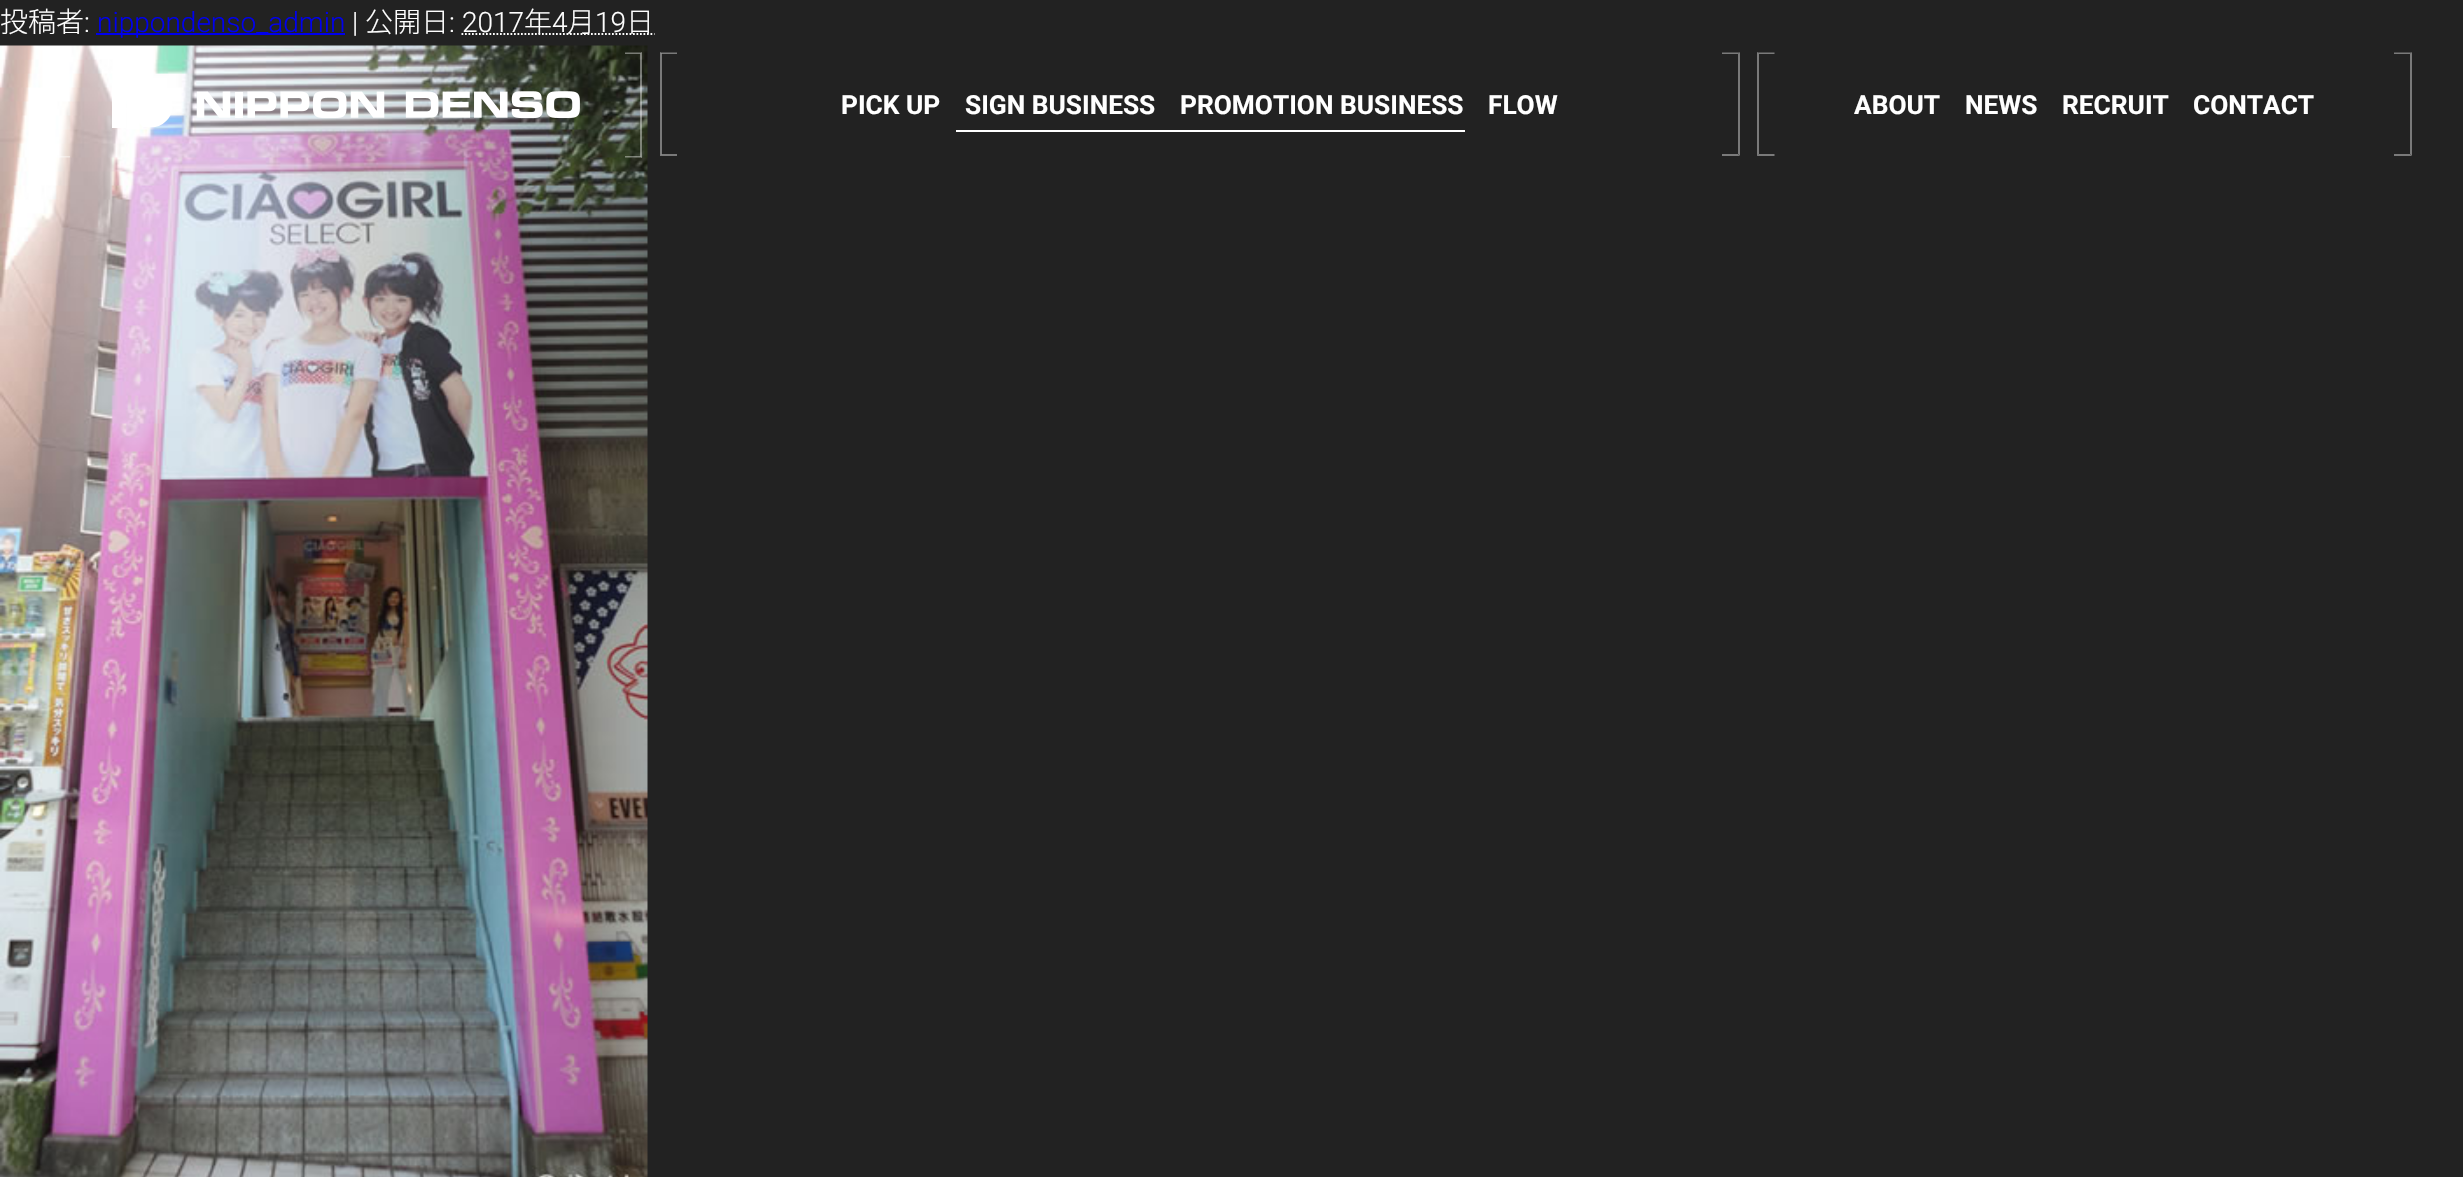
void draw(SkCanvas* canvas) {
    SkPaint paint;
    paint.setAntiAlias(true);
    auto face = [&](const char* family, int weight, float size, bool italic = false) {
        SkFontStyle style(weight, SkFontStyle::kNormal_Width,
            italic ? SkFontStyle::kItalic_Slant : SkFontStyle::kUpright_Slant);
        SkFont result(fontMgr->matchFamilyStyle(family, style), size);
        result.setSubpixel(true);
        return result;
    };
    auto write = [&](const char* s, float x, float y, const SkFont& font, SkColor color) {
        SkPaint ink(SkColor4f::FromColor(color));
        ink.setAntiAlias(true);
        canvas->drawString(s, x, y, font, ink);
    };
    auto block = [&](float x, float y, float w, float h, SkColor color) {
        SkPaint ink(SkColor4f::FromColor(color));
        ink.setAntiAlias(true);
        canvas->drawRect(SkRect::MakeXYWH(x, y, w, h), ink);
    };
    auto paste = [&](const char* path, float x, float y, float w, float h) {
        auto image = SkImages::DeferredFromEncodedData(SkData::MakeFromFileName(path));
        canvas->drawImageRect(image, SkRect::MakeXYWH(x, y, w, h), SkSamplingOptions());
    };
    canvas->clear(SkColorSetRGB(34, 34, 34));
    auto kFont1 = face("Noto Sans JP", 300, 28);
    write("投稿者", 0, 32, kFont1, SK_ColorWHITE);
    auto kFont2 = face("Roboto", 300, 28);
    write(":", 84, 32, kFont2, SK_ColorWHITE);
    block(96, 33, 249, 2, SkColorSetRGB(0, 0, 238));
    write("nippondenso_admin", 97, 32, kFont2, SkColorSetRGB(0, 0, 238));
    write("|", 352, 32, kFont2, SK_ColorWHITE);
    write("公開日", 365, 32, kFont1, SK_ColorWHITE);
    write(":", 449, 32, kFont2, SK_ColorWHITE);
    write("2017", 462, 32, kFont2, SK_ColorWHITE);
    paint.setStyle(SkPaint::kStroke_Style);
    paint.setStrokeWidth(1.8f);
    paint.setColor(SK_ColorWHITE);
    paint.setPathEffect(SkDashPathEffect::Make({{1.75f, 1.75f}}, 0));
    canvas->drawPath(SkPathBuilder().moveTo(461.5f, 34).lineTo(654.5f, 34).detach(), paint);
    paint.setPathEffect(nullptr);
    write("年", 524, 32, kFont1, SK_ColorWHITE);
    write("4", 552, 32, kFont2, SK_ColorWHITE);
    write("月", 567, 32, kFont1, SK_ColorWHITE);
    write("19", 595, 32, kFont2, SK_ColorWHITE);
    write("日", 626, 32, kFont1, SK_ColorWHITE);
    paste("pic1.png", 0, 45, 648, 1132);
    paint.setStyle(SkPaint::kFill_Style);
    canvas->drawPath(SkPathBuilder().moveTo(152, 82).lineTo(129, 82).lineTo(129, 97).lineTo(112, 82).lineTo(112, 128).lineTo(126, 128).lineTo(126, 97).lineTo(144, 113).lineTo(144, 96).lineTo(151, 96).cubicTo(155, 96, 159, 100, 159, 105).cubicTo(159, 110, 155, 113, 151, 113).lineTo(129, 113).lineTo(143, 127).cubicTo(149, 127, 154, 128, 159, 126).cubicTo(181, 116, 176, 84, 152, 82).close().detach(), paint);
    paste("pic2.png", 196, 91, 384, 28);
    paint.setColor(SkColorSetARGB(102, 255, 255, 255));
    canvas->drawPath(SkPathBuilder().moveTo(625, 52.5f).lineTo(642, 52.5f).lineTo(640.5f, 54).lineTo(625, 54).close().detach(), paint);
    canvas->drawPath(SkPathBuilder().moveTo(642, 52).lineTo(642, 158).lineTo(640, 156).lineTo(640, 54).close().detach(), paint);
    canvas->drawPath(SkPathBuilder().moveTo(642, 157.5f).lineTo(625, 157.5f).lineTo(625, 156).lineTo(640.5f, 156).close().detach(), paint);
    canvas->drawPath(SkPathBuilder().moveTo(70, 157.5f).lineTo(52.5f, 157.5f).lineTo(54, 156).lineTo(70, 156).close().detach(), paint);
    paint.setColor(SkColorSetRGB(122, 122, 122));
    canvas->drawPath(SkPathBuilder().moveTo(660, 52.5f).lineTo(677, 52.5f).lineTo(677, 54).lineTo(661.5f, 54).close().detach(), paint);
    canvas->drawPath(SkPathBuilder().moveTo(677, 156).lineTo(660, 156).lineTo(661.5f, 154).lineTo(677, 154).close().detach(), paint);
    paint.setColor(SkColorSetARGB(102, 255, 255, 255));
    canvas->drawPath(SkPathBuilder().moveTo(660, 156).lineTo(660, 52).lineTo(662, 54).lineTo(662, 154).close().detach(), paint);
    auto kFont3 = face("Roboto", 700, 26.25f);
    write("PICK UP", 841, 114, kFont3, SK_ColorWHITE);
    write("SIGN BUSINESS", 965, 114, kFont3, SK_ColorWHITE);
    write("PROMOTION BUSINESS", 1180, 114, kFont3, SK_ColorWHITE);
    write("FLOW", 1488, 114, kFont3, SK_ColorWHITE);
    paint.setColor(SkColorSetRGB(122, 122, 122));
    canvas->drawPath(SkPathBuilder().moveTo(1722, 52.5f).lineTo(1739.5f, 52.5f).lineTo(1738, 54).lineTo(1722, 54).close().detach(), paint);
    paint.setColor(SkColorSetARGB(102, 255, 255, 255));
    canvas->drawPath(SkPathBuilder().moveTo(1740, 52).lineTo(1740, 156).lineTo(1738, 154).lineTo(1738, 54).close().detach(), paint);
    paint.setColor(SkColorSetRGB(122, 122, 122));
    canvas->drawPath(SkPathBuilder().moveTo(1739.5f, 156).lineTo(1722, 156).lineTo(1722, 154).lineTo(1738, 154).close().detach(), paint);
    block(956, 130, 509, 2, SK_ColorWHITE);
    canvas->drawPath(SkPathBuilder().moveTo(1757, 52.5f).lineTo(1774.5f, 52.5f).lineTo(1774.5f, 54).lineTo(1759, 54).close().detach(), paint);
    canvas->drawPath(SkPathBuilder().moveTo(1774.5f, 156).lineTo(1757, 156).lineTo(1759, 154).lineTo(1774.5f, 154).close().detach(), paint);
    paint.setColor(SkColorSetARGB(102, 255, 255, 255));
    canvas->drawPath(SkPathBuilder().moveTo(1757, 156).lineTo(1757, 52).lineTo(1759, 54).lineTo(1759, 154).close().detach(), paint);
    write("ABOUT", 1854, 114, kFont3, SK_ColorWHITE);
    write("NEWS", 1965, 114, kFont3, SK_ColorWHITE);
    write("RECRUIT", 2062, 114, kFont3, SK_ColorWHITE);
    write("CONTACT", 2193, 114, kFont3, SK_ColorWHITE);
    paint.setColor(SkColorSetRGB(122, 122, 122));
    canvas->drawPath(SkPathBuilder().moveTo(2394, 52.5f).lineTo(2411.5f, 52.5f).lineTo(2410, 54).lineTo(2394, 54).close().detach(), paint);
    paint.setColor(SkColorSetARGB(102, 255, 255, 255));
    canvas->drawPath(SkPathBuilder().moveTo(2412, 52).lineTo(2412, 156).lineTo(2410, 154).lineTo(2410, 54).close().detach(), paint);
    paint.setColor(SkColorSetRGB(122, 122, 122));
    canvas->drawPath(SkPathBuilder().moveTo(2411.5f, 156).lineTo(2394, 156).lineTo(2394, 154).lineTo(2410, 154).close().detach(), paint);
}
